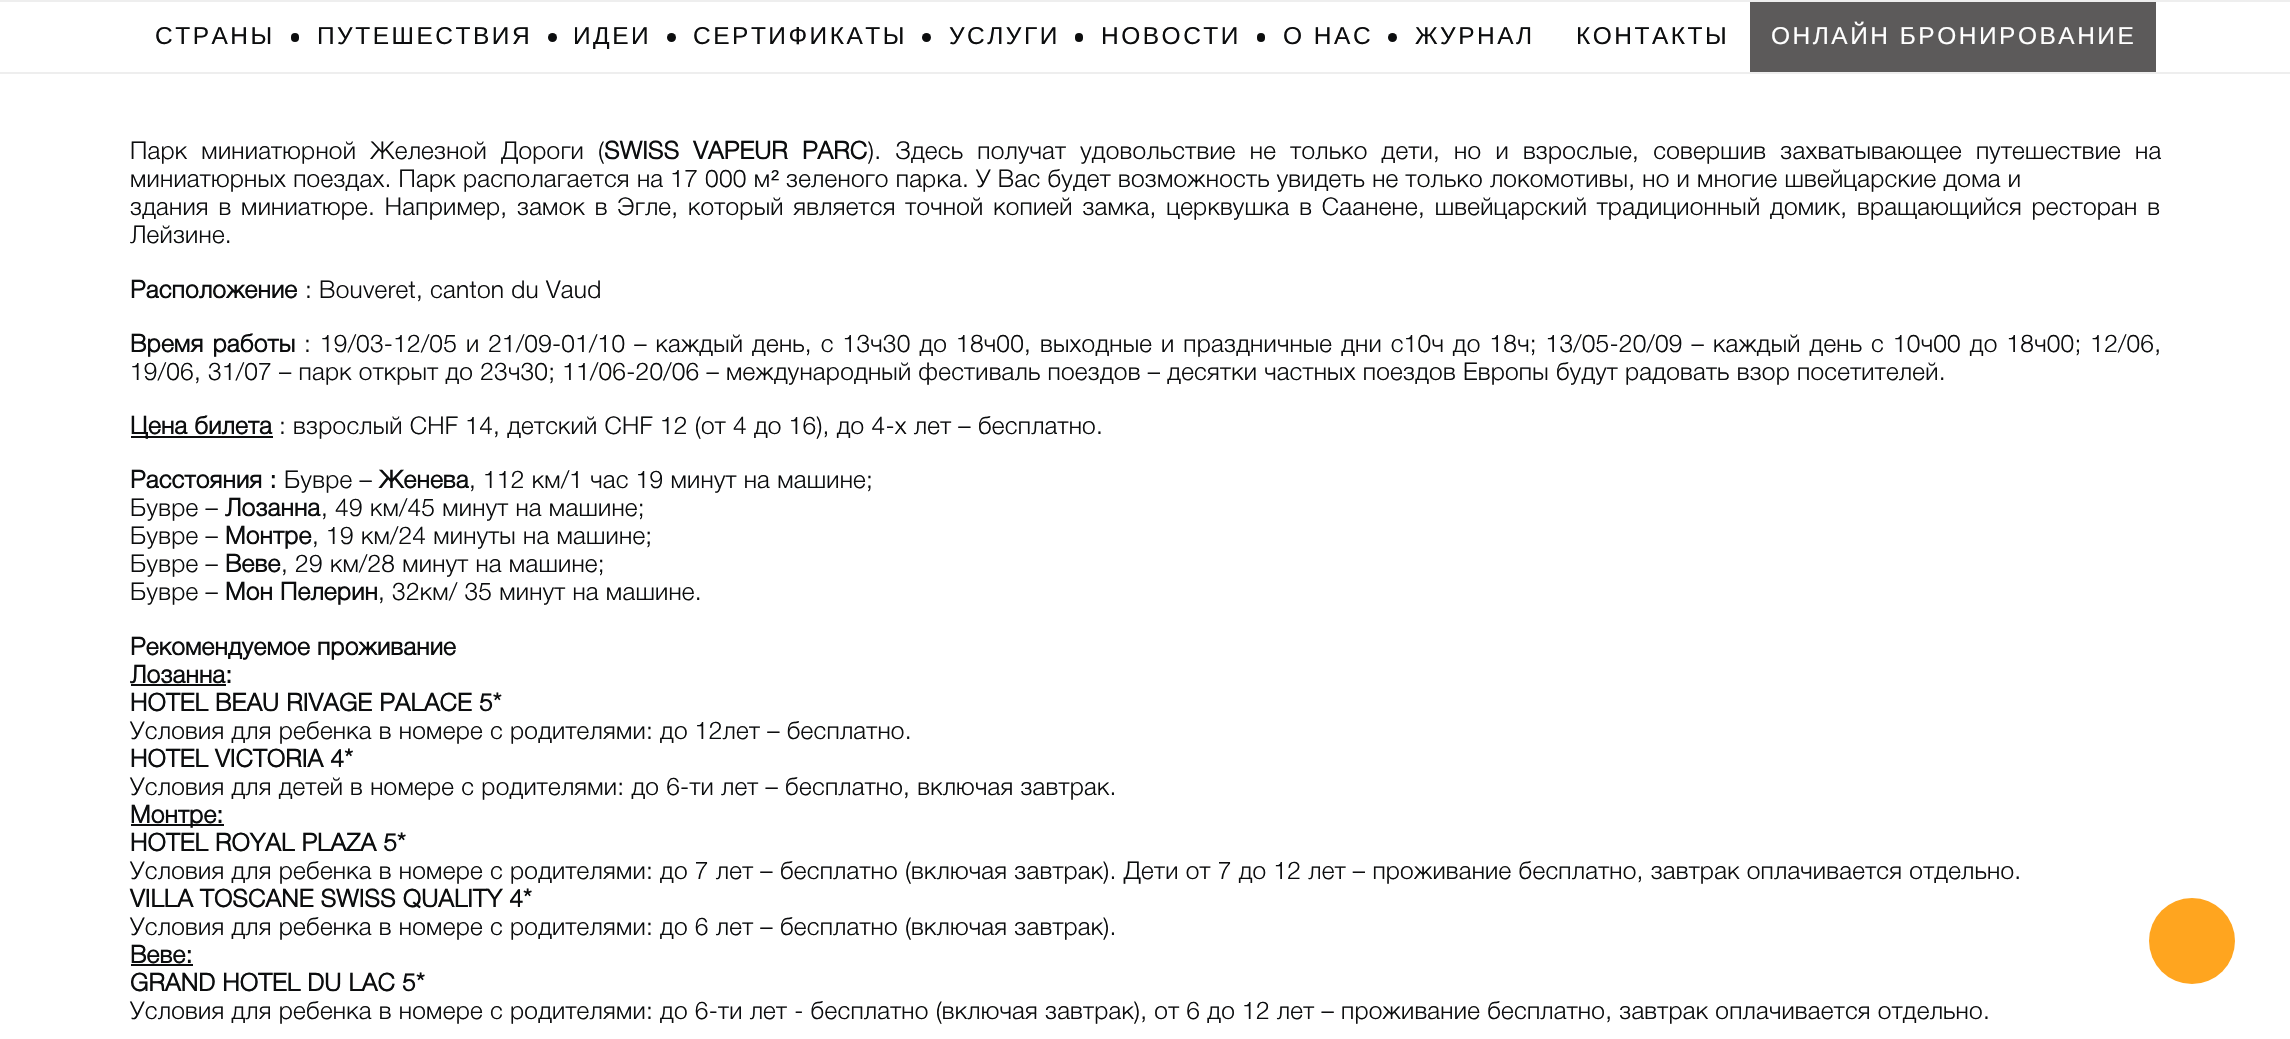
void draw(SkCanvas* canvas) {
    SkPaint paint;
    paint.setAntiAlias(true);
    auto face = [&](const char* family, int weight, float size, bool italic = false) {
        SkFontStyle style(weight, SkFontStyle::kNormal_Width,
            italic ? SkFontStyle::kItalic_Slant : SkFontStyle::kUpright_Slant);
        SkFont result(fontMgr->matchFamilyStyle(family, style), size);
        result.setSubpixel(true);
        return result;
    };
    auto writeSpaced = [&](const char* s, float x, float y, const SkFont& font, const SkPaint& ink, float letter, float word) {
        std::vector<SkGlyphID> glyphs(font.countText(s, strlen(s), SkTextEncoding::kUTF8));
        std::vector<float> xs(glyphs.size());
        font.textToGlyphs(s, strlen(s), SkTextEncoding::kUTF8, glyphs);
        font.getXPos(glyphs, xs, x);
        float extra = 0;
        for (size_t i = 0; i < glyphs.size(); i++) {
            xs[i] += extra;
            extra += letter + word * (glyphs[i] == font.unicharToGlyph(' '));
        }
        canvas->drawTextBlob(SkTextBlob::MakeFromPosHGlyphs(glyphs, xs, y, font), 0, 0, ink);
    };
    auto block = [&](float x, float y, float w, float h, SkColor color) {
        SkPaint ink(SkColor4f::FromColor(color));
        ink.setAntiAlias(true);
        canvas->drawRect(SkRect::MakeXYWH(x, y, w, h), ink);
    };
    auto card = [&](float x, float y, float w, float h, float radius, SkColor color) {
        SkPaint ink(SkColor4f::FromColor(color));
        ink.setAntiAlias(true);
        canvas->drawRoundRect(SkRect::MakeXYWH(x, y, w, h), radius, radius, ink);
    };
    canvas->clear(SK_ColorWHITE);
    block(0, 0, 2290, 2, SkColorSetRGB(238, 238, 238));
    block(0, 72, 2290, 2, SkColorSetRGB(238, 238, 238));
    auto kFont1 = face("Liberation Sans", 400, 24.5f);
    paint.setColor(SkColorSetRGB(12, 13, 14));
    writeSpaced("СТРАНЫ", 155, 44, kFont1, paint, 2.5f, 0);
    card(291, 33, 8, 9, 4, SkColorSetRGB(12, 13, 14));
    writeSpaced("ПУТЕШЕСТВИЯ", 317, 44, kFont1, paint, 2.5f, 0);
    canvas->drawCircle(552.5f, 37.5f, 4.5f, paint);
    writeSpaced("ИДЕИ", 573, 44, kFont1, paint, 2.5f, 0);
    canvas->drawCircle(671.5f, 37.5f, 4.5f, paint);
    writeSpaced("СЕРТИФИКАТЫ", 693, 44, kFont1, paint, 2.5f, 0);
    canvas->drawCircle(926.5f, 37.5f, 4.5f, paint);
    writeSpaced("УСЛУГИ", 949, 44, kFont1, paint, 2.5f, 0);
    card(1075, 33, 8, 9, 4, SkColorSetRGB(12, 13, 14));
    writeSpaced("НОВОСТИ", 1101, 44, kFont1, paint, 2.5f, 0);
    card(1257, 33, 8, 9, 4, SkColorSetRGB(12, 13, 14));
    writeSpaced("О НАС", 1283, 44, kFont1, paint, 2.5f, 0);
    canvas->drawCircle(1392.5f, 37.5f, 4.5f, paint);
    writeSpaced("ЖУРНАЛ", 1415, 44, kFont1, paint, 2.5f, 0);
    writeSpaced("КОНТАКТЫ", 1576, 44, kFont1, paint, 2.5f, 0);
    block(1750, 2, 406, 70, SkColorSetRGB(92, 90, 90));
    paint.setColor(SK_ColorWHITE);
    writeSpaced("ОНЛАЙН БРОНИРОВАНИЕ", 1771, 44, kFont1, paint, 2.5f, 0);
    auto kFont2 = face("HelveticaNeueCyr", 300, 24.5f);
    paint.setColor(SkColorSetRGB(12, 13, 14));
    writeSpaced("Парк миниатюрной Железной Дороги (", 130, 159, kFont2, paint, 0.25f, 7);
    auto kFont3 = face("HelveticaNeueCyr", 700, 24.5f);
    writeSpaced("SWISS VAPEUR PARC", 604, 159, kFont3, paint, 0.25f, 7);
    writeSpaced("). Здесь получат удовольствие не только дети, но и взрослые, совершив захватывающее путешествие на", 868, 159, kFont2, paint, 0.25f, 7);
    writeSpaced("миниатюрных поездах. Парк располагается на 17 000 м", 130, 187, kFont2, paint, 0.25f, 0);
    writeSpaced("²", 771, 187, kFont1, paint, 0.25f, 0);
    writeSpaced("зеленого парка. У Вас будет возможность увидеть не только локомотивы, но и многие швейцарские дома и", 786, 187, kFont2, paint, 0.25f, 0);
    writeSpaced("здания в миниатюре. Например, замок в Эгле, который является точной копией замка, церквушка в Саанене, швейцарский традиционный домик, вращающийся ресторан в", 130, 215, kFont2, paint, 0.25f, 2.6f);
    writeSpaced("Лейзине.", 130, 243, kFont2, paint, 0.25f, 0);
    writeSpaced("Расположение", 130, 298, kFont3, paint, 0.25f, 0);
    writeSpaced(": Bouveret, canton du Vaud", 305, 298, kFont2, paint, 0.25f, 0);
    writeSpaced("Время работы", 130, 352, kFont3, paint, 0.25f, 2);
    writeSpaced(": 19/03-12/05 и 21/09-01/10 – каждый день, с 13ч30 до 18ч00, выходные и праздничные дни с10ч до 18ч; 13/05-20/09 – каждый день с 10ч00 до 18ч00; 12/06,", 304, 352, kFont2, paint, 0.25f, 1.8f);
    writeSpaced("19/06, 31/07 – парк открыт до 23ч30; 11/06-20/06 – международный фестиваль поездов – десятки частных поездов Европы будут радовать взор посетителей.", 130, 380, kFont2, paint, 0.25f, 0);
    block(131, 436, 142, 2, SkColorSetRGB(12, 13, 14));
    writeSpaced("Цена билета", 130, 434, kFont3, paint, 0.25f, 0);
    writeSpaced(": взрослый CHF 14, детский CHF 12 (от 4 до 16), до 4-х лет – бесплатно.", 279, 434, kFont2, paint, 0.25f, 0);
    writeSpaced("Расстояния :", 130, 488, kFont3, paint, 0.25f, 0);
    writeSpaced("Бувре –", 284, 488, kFont2, paint, 0.25f, 0);
    writeSpaced("Женева", 379, 488, kFont3, paint, 0.25f, 0);
    writeSpaced(", 112 км/1 час 19 минут на машине;", 469, 488, kFont2, paint, 0.25f, 0);
    writeSpaced("Бувре –", 130, 516, kFont2, paint, 0.25f, 0);
    writeSpaced("Лозанна", 225, 516, kFont3, paint, 0.25f, 0);
    writeSpaced(", 49 км/45 минут на машине;", 321, 516, kFont2, paint, 0.25f, 0);
    writeSpaced("Бувре –", 130, 544, kFont2, paint, 0.25f, 0);
    writeSpaced("Монтре", 225, 544, kFont3, paint, 0.25f, 0);
    writeSpaced(", 19 км/24 минуты на машине;", 312, 544, kFont2, paint, 0.25f, 0);
    writeSpaced("Бувре –", 130, 572, kFont2, paint, 0.25f, 0);
    writeSpaced("Веве", 225, 572, kFont3, paint, 0.25f, 0);
    writeSpaced(", 29 км/28 минут на машине;", 281, 572, kFont2, paint, 0.25f, 0);
    writeSpaced("Бувре –", 130, 600, kFont2, paint, 0.25f, 0);
    writeSpaced("Мон Пелерин", 225, 600, kFont3, paint, 0.25f, 0);
    writeSpaced(", 32км/ 35 минут на машине.", 378, 600, kFont2, paint, 0.25f, 0);
    writeSpaced("Рекомендуемое проживание", 130, 655, kFont3, paint, 0.25f, 0);
    writeSpaced("Лозанна:", 130, 683, kFont3, paint, 0.25f, 0);
    block(131, 684, 95, 2, SkColorSetRGB(12, 13, 14));
    writeSpaced("HOTEL BEAU RIVAGE PALACE 5*", 130, 711, kFont3, paint, 0.25f, 0);
    writeSpaced("Условия для ребенка в номере с родителями: до 12лет – бесплатно.", 130, 739, kFont2, paint, 0.25f, 0);
    writeSpaced("HOTEL VICTORIA 4*", 130, 767, kFont3, paint, 0.25f, 0);
    writeSpaced("Условия для детей в номере с родителями: до 6-ти лет – бесплатно, включая завтрак.", 130, 795, kFont2, paint, 0.25f, 0);
    block(131, 824, 93, 2, SkColorSetRGB(12, 13, 14));
    writeSpaced("Монтре:", 130, 823, kFont3, paint, 0.25f, 0);
    writeSpaced("HOTEL ROYAL PLAZA 5*", 130, 851, kFont3, paint, 0.25f, 0);
    writeSpaced("Условия для ребенка в номере с родителями: до 7 лет – бесплатно (включая завтрак). Дети от 7 до 12 лет – проживание бесплатно, завтрак оплачивается отдельно.", 130, 879, kFont2, paint, 0.25f, 0);
    writeSpaced("VILLA TOSCANE SWISS QUALITY 4*", 130, 907, kFont3, paint, 0.25f, 0);
    writeSpaced("Условия для ребенка в номере с родителями: до 6 лет – бесплатно (включая завтрак).", 130, 935, kFont2, paint, 0.25f, 0);
    writeSpaced("Веве:", 130, 963, kFont3, paint, 0.25f, 0);
    block(131, 964, 62, 2, SkColorSetRGB(12, 13, 14));
    writeSpaced("GRAND HOTEL DU LAC 5*", 130, 991, kFont3, paint, 0.25f, 0);
    writeSpaced("Условия для ребенка в номере с родителями: до 6-ти лет - бесплатно (включая завтрак), от 6 до 12 лет – проживание бесплатно, завтрак оплачивается отдельно.", 130, 1019, kFont2, paint, 0.25f, 0);
    paint.setColor(SkColorSetRGB(255, 165, 31));
    canvas->drawCircle(2192, 941, 43, paint);
}
